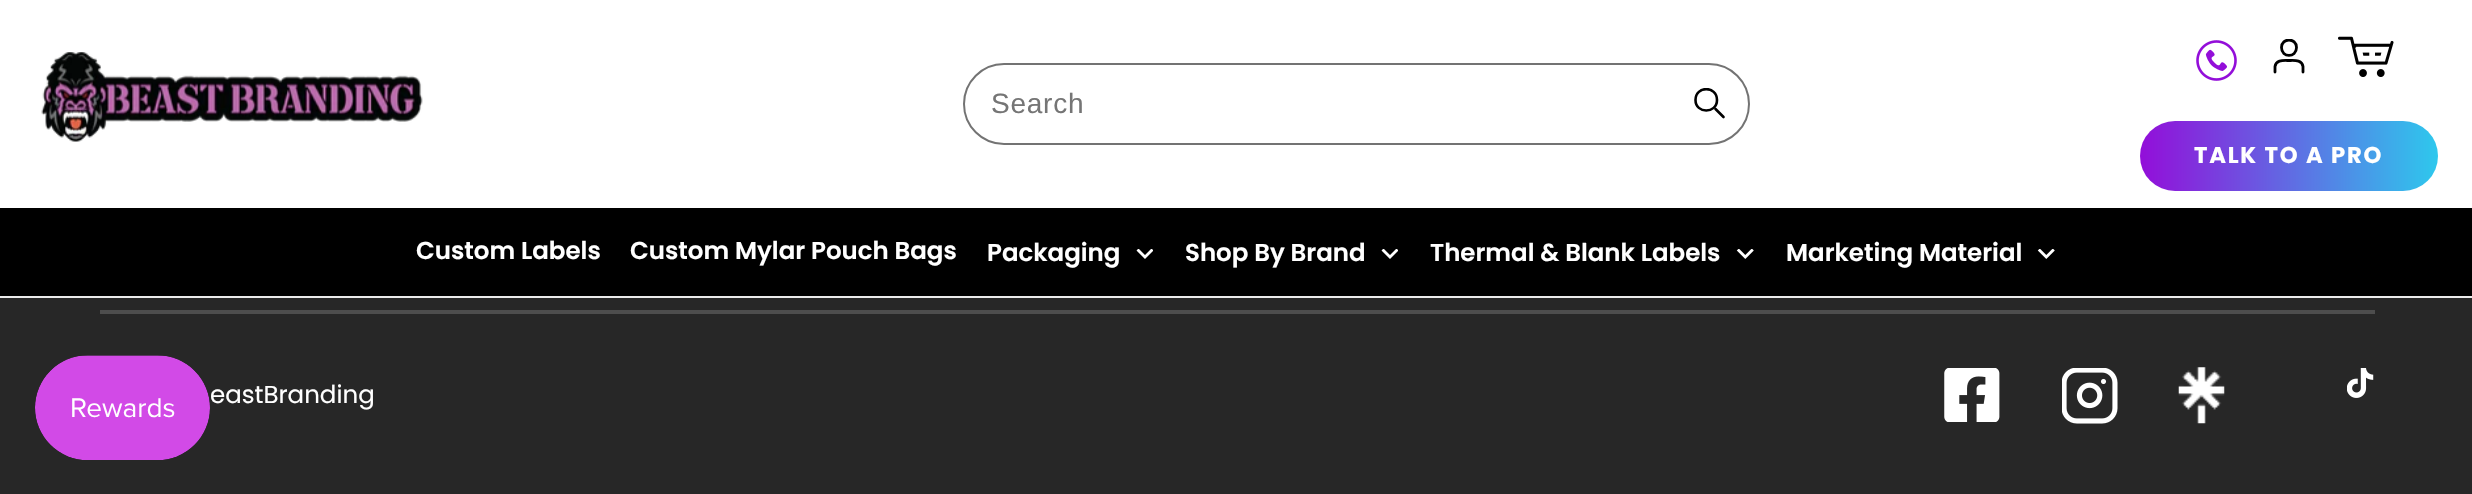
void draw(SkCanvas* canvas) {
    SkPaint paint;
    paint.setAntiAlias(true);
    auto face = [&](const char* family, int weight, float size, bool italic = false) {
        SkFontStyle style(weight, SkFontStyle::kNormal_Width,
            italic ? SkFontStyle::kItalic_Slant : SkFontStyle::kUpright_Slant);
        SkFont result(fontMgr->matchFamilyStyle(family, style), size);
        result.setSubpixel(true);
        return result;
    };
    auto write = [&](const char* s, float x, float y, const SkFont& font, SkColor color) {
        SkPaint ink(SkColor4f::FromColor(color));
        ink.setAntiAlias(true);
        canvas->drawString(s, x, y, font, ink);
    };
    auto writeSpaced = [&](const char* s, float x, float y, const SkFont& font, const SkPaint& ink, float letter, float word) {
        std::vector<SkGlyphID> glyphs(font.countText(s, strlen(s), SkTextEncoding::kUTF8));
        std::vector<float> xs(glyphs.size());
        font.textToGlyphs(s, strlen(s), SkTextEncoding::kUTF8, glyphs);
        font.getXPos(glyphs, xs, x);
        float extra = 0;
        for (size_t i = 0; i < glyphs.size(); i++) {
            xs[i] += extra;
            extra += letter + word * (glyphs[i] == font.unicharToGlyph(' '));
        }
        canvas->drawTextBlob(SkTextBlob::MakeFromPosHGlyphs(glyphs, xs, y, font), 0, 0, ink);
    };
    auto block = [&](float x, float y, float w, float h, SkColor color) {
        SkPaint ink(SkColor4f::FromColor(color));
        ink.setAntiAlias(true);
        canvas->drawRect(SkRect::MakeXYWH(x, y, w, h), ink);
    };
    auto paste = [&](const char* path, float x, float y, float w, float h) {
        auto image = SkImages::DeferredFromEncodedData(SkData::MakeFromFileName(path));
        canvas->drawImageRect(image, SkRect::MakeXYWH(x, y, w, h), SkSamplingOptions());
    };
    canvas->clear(SkColorSetRGB(39, 39, 39));
    block(0, 0, 2472, 208, SK_ColorWHITE);
    block(0, 296, 2472, 2, SkColorSetRGB(235, 235, 235));
    paste("pic1.png", 41, 52, 382, 90);
    canvas->save();
    canvas->clipRect(SkRect::MakeXYWH(1694, 88, 32, 31));
    paint.setStyle(SkPaint::kStroke_Style);
    paint.setStrokeWidth(2.6f);
    paint.setStrokeCap(SkPaint::kRound_Cap);
    paint.setStrokeJoin(SkPaint::kRound_Join);
    paint.setColor(SK_ColorBLACK);
    canvas->drawPath(SkPathBuilder().moveTo(1717, 100).cubicTo(1717, 114, 1695.5f, 114, 1695.5f, 100).cubicTo(1695.5f, 85.5f, 1717, 85.5f, 1717, 100).close().detach(), paint);
    canvas->restore();
    canvas->drawPath(SkPathBuilder().moveTo(1723.5f, 117).lineTo(1715.5f, 109).detach(), paint);
    paint.setStrokeWidth(2);
    paint.setStrokeCap(SkPaint::kButt_Cap);
    paint.setStrokeJoin(SkPaint::kMiter_Join);
    paint.setColor(SkColorSetRGB(115, 115, 115));
    canvas->drawRoundRect(SkRect::MakeXYWH(964, 64, 785, 80), 40, 40, paint);
    auto kFont1 = face("Liberation Sans", 400, 28);
    paint.setStyle(SkPaint::kFill_Style);
    paint.setColor(SkColorSetRGB(117, 117, 117));
    writeSpaced("Search", 991, 113, kFont1, paint, 0.75f, 0);
    paste("pic2.png", 2196, 40, 41, 41);
    paint.setStyle(SkPaint::kStroke_Style);
    paint.setStrokeWidth(2.8f);
    paint.setStrokeCap(SkPaint::kRound_Cap);
    paint.setStrokeJoin(SkPaint::kRound_Join);
    paint.setColor(SK_ColorBLACK);
    canvas->drawPath(SkPathBuilder().moveTo(2303, 72).lineTo(2303, 66.5f).cubicTo(2302, 59.5f, 2294.5f, 60.5f, 2289, 60.5f).cubicTo(2283.5f, 60.5f, 2276, 59.5f, 2275, 66.5f).lineTo(2275, 72).detach(), paint);
    canvas->save();
    canvas->clipRect(SkRect::MakeXYWH(2272, 39, 35, 35));
    canvas->drawPath(SkPathBuilder().moveTo(2296.5f, 47.5f).cubicTo(2296.5f, 58, 2281.5f, 58, 2281.5f, 47.5f).cubicTo(2281.5f, 37.5f, 2296.5f, 37.5f, 2296.5f, 47.5f).close().detach(), paint);
    canvas->restore();
    paste("pic3.png", 2338, 36, 56, 41);
    paint.setStyle(SkPaint::kFill_Style);
    {
        const SkColor colors[] = {SkColorSetRGB(147, 14, 217), SkColorSetRGB(46, 200, 237)};
        const float stops[] = {0, 1};
        const SkPoint ends[] = {{2140, 156}, {2438, 156}};
        paint.setShader(SkGradientShader::MakeLinear(ends, colors, stops, 2, SkTileMode::kClamp));
        paint.setAlpha(255);
    }
    canvas->drawRoundRect(SkRect::MakeXYWH(2140, 121, 298, 70), 35, 35, paint);
    auto kFont2 = face("Poppins", 700, 22.75f);
    paint.setShader(nullptr);
    paint.setColor(SK_ColorWHITE);
    writeSpaced("TALK TO A PRO", 2194, 163, kFont2, paint, 1.75f, 0);
    block(0, 208, 2472, 88, SK_ColorBLACK);
    auto kFont3 = face("Poppins", 600, 24.5f);
    write("Custom Labels", 416, 259, kFont3, SK_ColorWHITE);
    write("Custom Mylar Pouch Bags", 630, 259, kFont3, SK_ColorWHITE);
    write("Packaging", 987, 261, kFont3, SK_ColorWHITE);
    canvas->save();
    canvas->clipRect(SkRect::MakeXYWH(1136, 249, 17, 10));
    canvas->drawPath(SkPathBuilder().moveTo(1138.5f, 248.5f).lineTo(1145, 255).lineTo(1151.5f, 248.5f).lineTo(1153.5f, 250.5f).lineTo(1145, 259).lineTo(1136.5f, 250.5f).close().detach(), paint);
    canvas->restore();
    write("Shop By Brand", 1185, 261, kFont3, SK_ColorWHITE);
    canvas->save();
    canvas->clipRect(SkRect::MakeXYWH(1381, 249, 17, 10));
    canvas->drawPath(SkPathBuilder().moveTo(1383.5f, 248.5f).lineTo(1390, 255).lineTo(1396.5f, 248.5f).lineTo(1398.5f, 250.5f).lineTo(1390, 259).lineTo(1381.5f, 250.5f).close().detach(), paint);
    canvas->restore();
    write("Thermal & Blank Labels", 1430, 261, kFont3, SK_ColorWHITE);
    paste("pic4.png", 1736, 249, 18, 10);
    write("Marketing Material", 1786, 261, kFont3, SK_ColorWHITE);
    paste("pic4.png", 2037, 249, 18, 10);
    paste("pic5.png", 35, 355, 175, 105);
    block(100, 310, 2275, 4, SkColorSetRGB(77, 77, 77));
    auto kFont4 = face("Poppins", 400, 24.5f);
    write("eastBranding", 210, 403, kFont4, SK_ColorWHITE);
    paste("pic6.png", 1944, 368, 56, 54);
    paste("pic7.png", 2062, 368, 56, 56);
    paste("pic8.png", 2178, 367, 47, 57);
    paste("pic9.png", 2347, 368, 27, 30);
}
